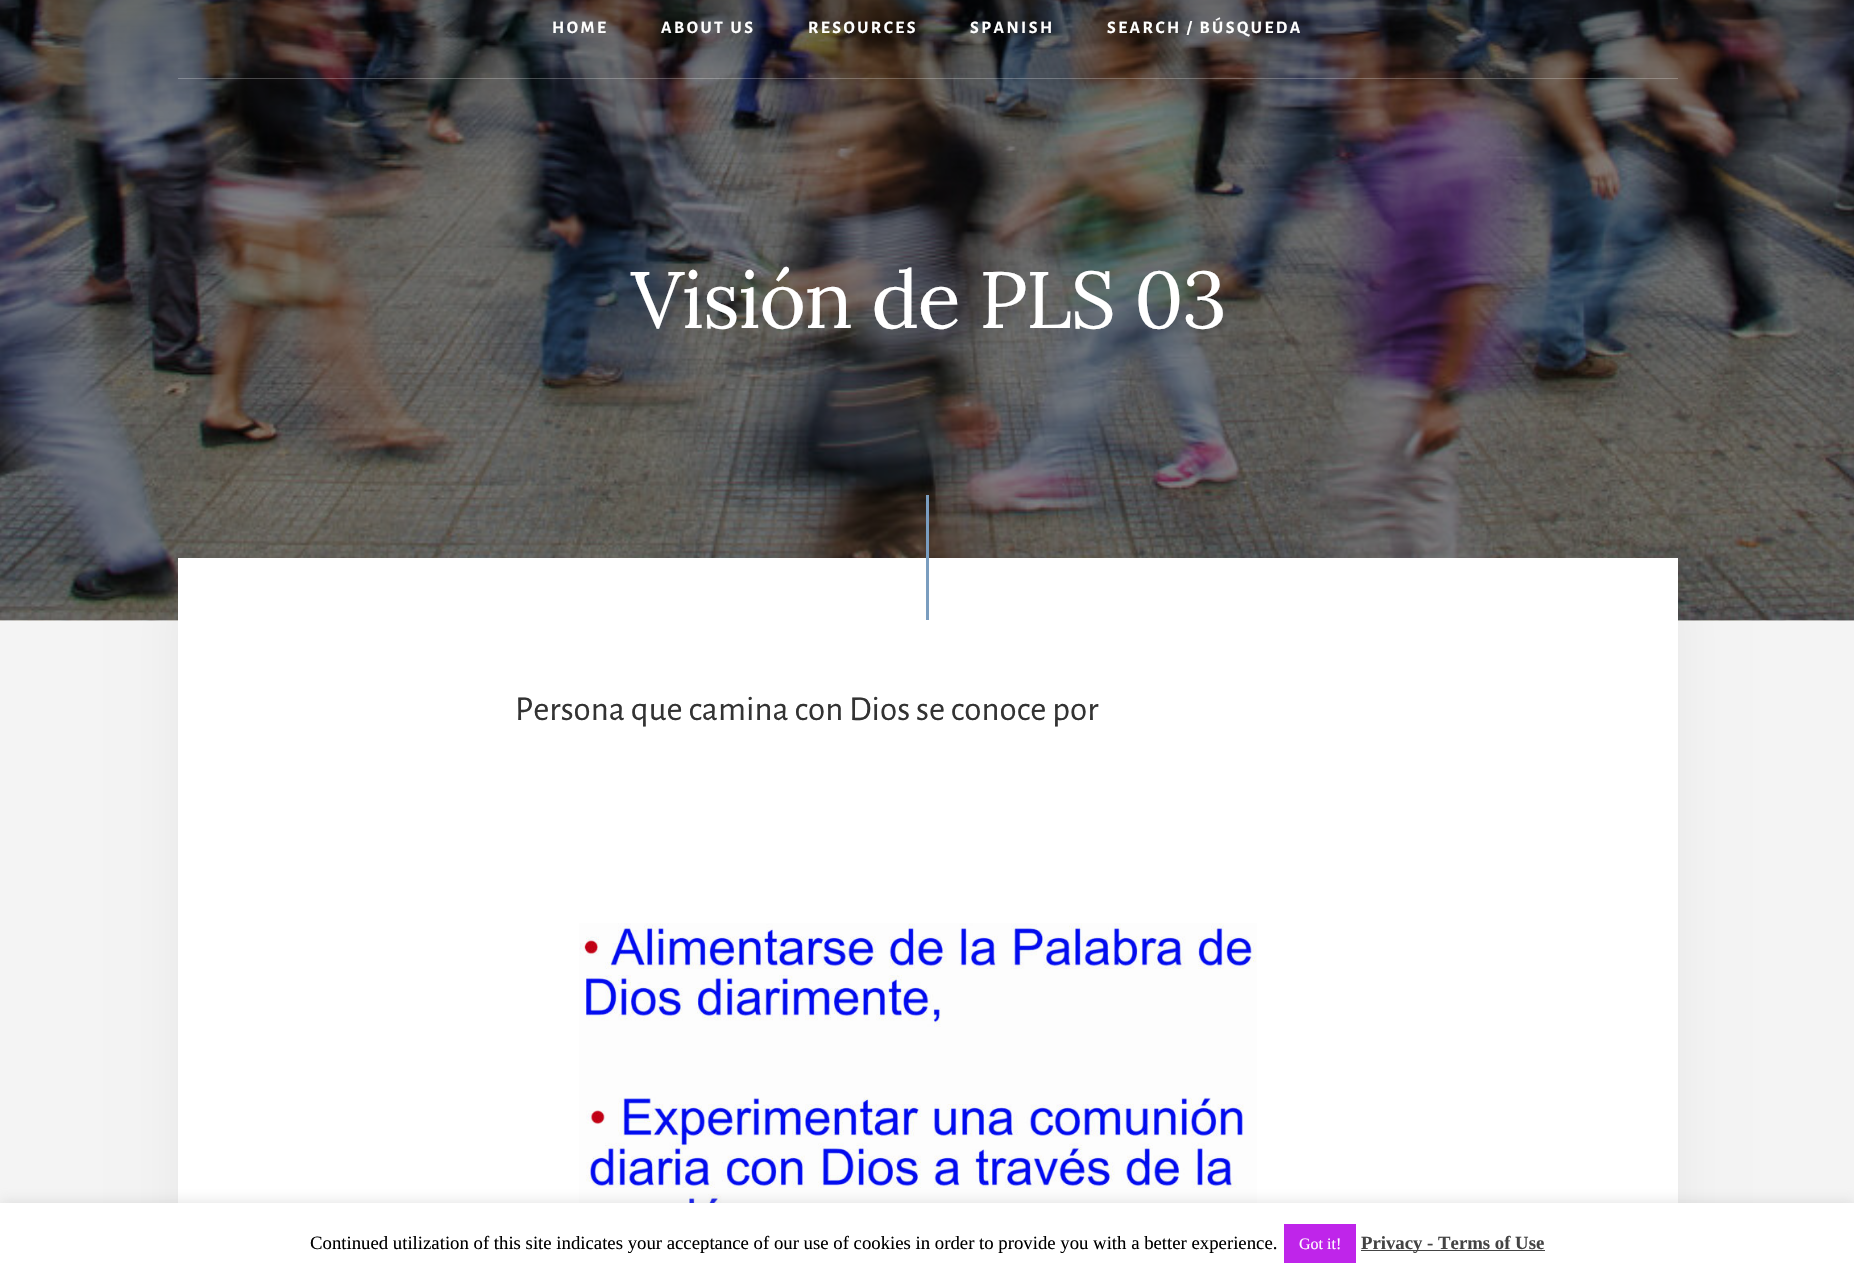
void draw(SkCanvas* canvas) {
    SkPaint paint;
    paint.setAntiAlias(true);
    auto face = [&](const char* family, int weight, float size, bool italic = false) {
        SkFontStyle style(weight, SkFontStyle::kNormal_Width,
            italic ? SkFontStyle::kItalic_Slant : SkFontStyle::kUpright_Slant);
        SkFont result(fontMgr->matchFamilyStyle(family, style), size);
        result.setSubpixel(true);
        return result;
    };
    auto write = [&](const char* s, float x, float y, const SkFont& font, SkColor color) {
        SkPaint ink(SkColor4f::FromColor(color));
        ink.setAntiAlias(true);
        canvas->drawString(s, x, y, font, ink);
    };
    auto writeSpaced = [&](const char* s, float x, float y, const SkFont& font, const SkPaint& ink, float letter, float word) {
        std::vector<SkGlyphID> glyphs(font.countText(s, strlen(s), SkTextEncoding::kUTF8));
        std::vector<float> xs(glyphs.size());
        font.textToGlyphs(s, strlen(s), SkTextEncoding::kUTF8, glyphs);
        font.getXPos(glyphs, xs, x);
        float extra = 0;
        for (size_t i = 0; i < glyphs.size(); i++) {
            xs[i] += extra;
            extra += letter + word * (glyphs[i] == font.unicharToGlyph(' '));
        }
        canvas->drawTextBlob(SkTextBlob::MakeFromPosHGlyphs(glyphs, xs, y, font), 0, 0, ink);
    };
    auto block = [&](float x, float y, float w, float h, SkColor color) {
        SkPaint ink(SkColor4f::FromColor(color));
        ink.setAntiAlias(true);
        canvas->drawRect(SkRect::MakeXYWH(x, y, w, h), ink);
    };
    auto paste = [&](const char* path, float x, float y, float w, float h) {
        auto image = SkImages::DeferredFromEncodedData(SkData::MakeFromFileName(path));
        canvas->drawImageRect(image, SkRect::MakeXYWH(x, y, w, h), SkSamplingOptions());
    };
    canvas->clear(SkColorSetRGB(244, 244, 244));
    paste("pic1.png", 0, 0, 1854, 621);
    block(178, 78, 1500, 1, SkColorSetARGB(64, 255, 255, 255));
    auto kFont1 = face("Alegreya Sans", 700, 17.5f);
    paint.setColor(SK_ColorWHITE);
    writeSpaced("HOME", 552, 33, kFont1, paint, 2.5f, 0);
    writeSpaced("ABOUT US", 661, 33, kFont1, paint, 2.5f, 0);
    writeSpaced("RESOURCES", 808, 33, kFont1, paint, 2.5f, 0);
    writeSpaced("SPANISH", 970, 33, kFont1, paint, 2.5f, 0);
    writeSpaced("SEARCH / BÚSQUEDA", 1107, 33, kFont1, paint, 2.5f, 0);
    auto kFont2 = face("Lora", 400, 80);
    writeSpaced("Visión de PLS 03", 631, 328, kFont2, paint, -1.5f, 0);
    paint.setColor(SkColorSetARGB(13, 0, 0, 0));
    paint.setMaskFilter(SkMaskFilter::MakeBlur(kNormal_SkBlurStyle, 25));
    canvas->drawRect(SkRect::MakeXYWH(178, 589, 1500, 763), paint);
    paint.setMaskFilter(nullptr);
    block(178, 558, 1500, 645, SK_ColorWHITE);
    block(926, 495, 3, 125, SkColorSetRGB(122, 157, 191));
    auto kFont3 = face("Alegreya Sans", 400, 35);
    write("Persona que camina con Dios se conoce por", 515, 720, kFont3, SkColorSetRGB(51, 51, 51));
    paste("pic2.png", 579, 923, 678, 280);
    paint.setColor(SkColorSetARGB(77, 172, 171, 171));
    paint.setMaskFilter(SkMaskFilter::MakeBlur(kNormal_SkBlurStyle, 6));
    canvas->drawRect(SkRect::MakeXYWH(0, 1201, 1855, 75), paint);
    paint.setMaskFilter(nullptr);
    block(0, 1203, 1854, 74, SK_ColorWHITE);
    auto kFont4 = face("Liberation Serif", 400, 18.75f);
    write("Continued utilization of this site indicates your acceptance of our use of cookies in order to provide you with a better experience.", 310, 1249, kFont4, SK_ColorBLACK);
    block(1284, 1224, 72, 39, SkColorSetRGB(191, 37, 234));
    auto kFont5 = face("Liberation Serif", 400, 16);
    write("Got it!", 1299, 1249, kFont5, SK_ColorWHITE);
    block(1361, 1250, 184, 1, SkColorSetRGB(68, 68, 68));
    auto kFont6 = face("Liberation Serif", 700, 18.75f);
    write("Privacy - Terms of Use", 1361, 1249, kFont6, SkColorSetRGB(68, 68, 68));
}
